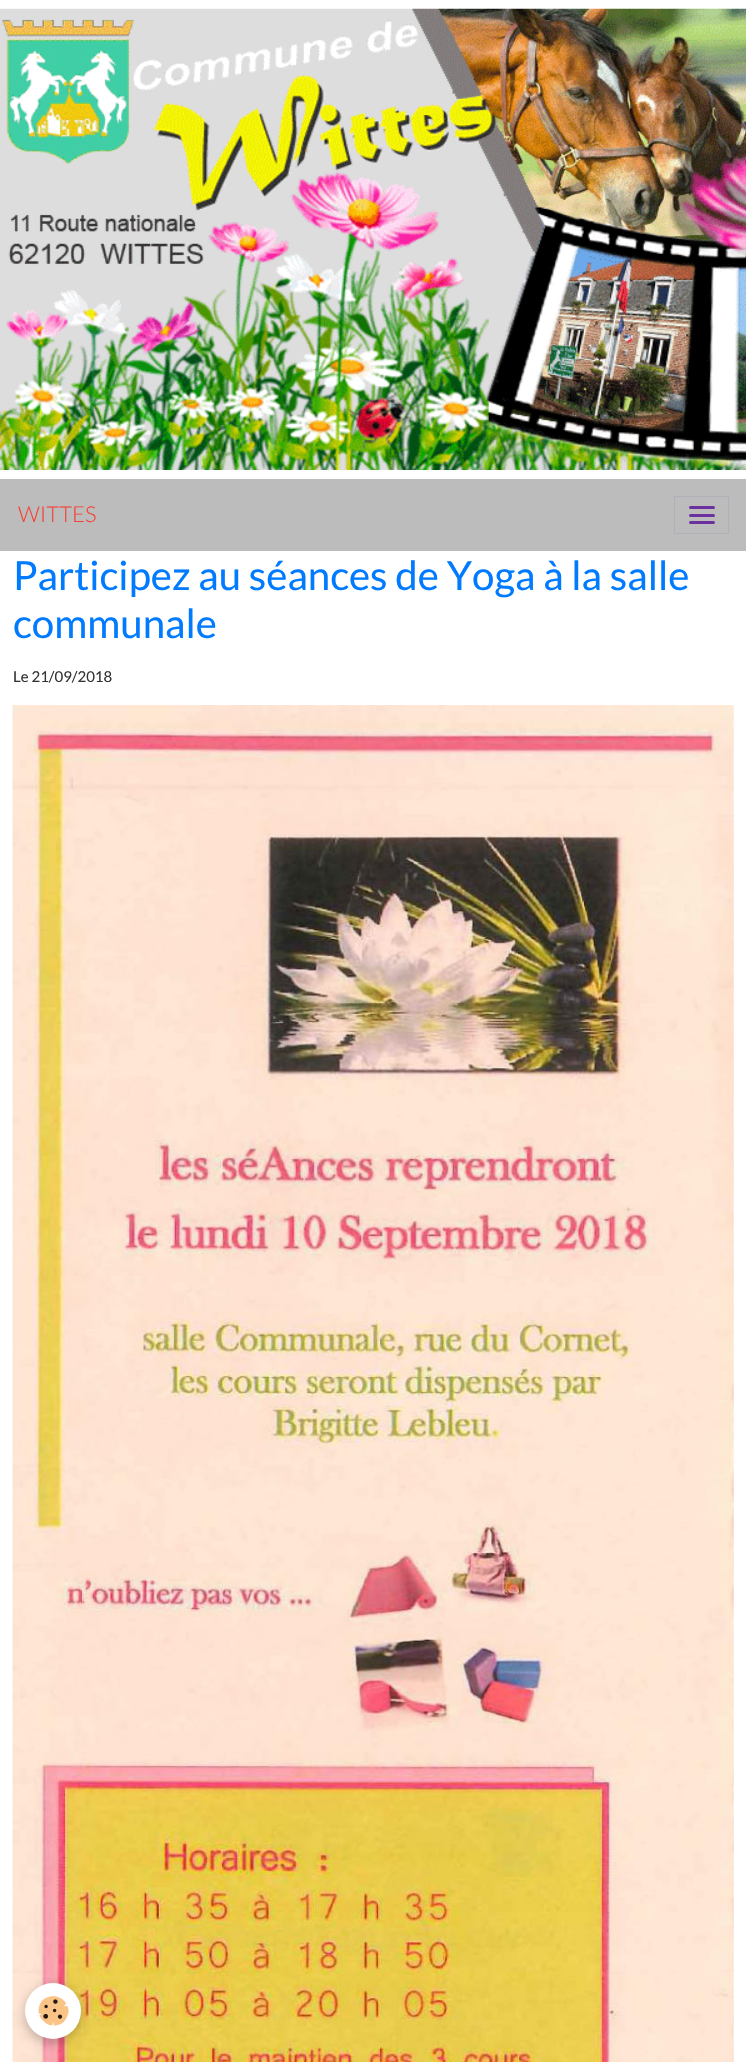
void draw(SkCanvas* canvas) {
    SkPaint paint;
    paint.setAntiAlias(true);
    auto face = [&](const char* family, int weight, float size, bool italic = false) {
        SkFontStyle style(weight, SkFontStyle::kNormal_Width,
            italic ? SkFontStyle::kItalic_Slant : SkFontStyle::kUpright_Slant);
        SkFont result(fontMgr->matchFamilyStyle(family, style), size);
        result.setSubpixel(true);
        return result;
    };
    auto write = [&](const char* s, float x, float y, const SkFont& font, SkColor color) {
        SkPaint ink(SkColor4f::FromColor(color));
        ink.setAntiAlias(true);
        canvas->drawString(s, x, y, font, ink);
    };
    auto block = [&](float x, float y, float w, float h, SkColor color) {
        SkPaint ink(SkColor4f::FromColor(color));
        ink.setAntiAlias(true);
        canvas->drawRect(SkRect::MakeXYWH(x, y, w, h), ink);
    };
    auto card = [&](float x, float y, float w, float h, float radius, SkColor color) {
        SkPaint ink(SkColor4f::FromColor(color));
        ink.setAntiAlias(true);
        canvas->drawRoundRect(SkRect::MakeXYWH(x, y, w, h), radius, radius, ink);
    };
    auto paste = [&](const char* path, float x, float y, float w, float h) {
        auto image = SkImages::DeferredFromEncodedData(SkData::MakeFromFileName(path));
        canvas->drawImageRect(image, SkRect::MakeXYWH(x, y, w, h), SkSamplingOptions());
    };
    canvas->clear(SK_ColorWHITE);
    paste("pic1.png", 0, 8, 746, 462);
    block(0, 479, 746, 72, SkColorSetRGB(188, 188, 188));
    auto kFont1 = face("Lato", 300, 22);
    write("WITTES", 18, 522, kFont1, SkColorSetRGB(244, 67, 54));
    paint.setStyle(SkPaint::kStroke_Style);
    paint.setStrokeWidth(1);
    paint.setColor(SkColorSetRGB(180, 174, 185));
    canvas->drawRect(SkRect::MakeXYWH(674.5f, 496.5f, 54, 37), paint);
    card(689, 506, 26, 3, 1.5f, SkColorSetRGB(106, 50, 159));
    card(689, 514, 26, 3, 1.5f, SkColorSetRGB(106, 50, 159));
    card(689, 521, 26, 3, 1.5f, SkColorSetRGB(106, 50, 159));
    auto kFont2 = face("Lato", 400, 40.25f);
    write("Participez au séances de Yoga à la salle", 13, 590, kFont2, SkColorSetRGB(0, 123, 255));
    write("communale", 13, 638, kFont2, SkColorSetRGB(0, 123, 255));
    auto kFont3 = face("Lato", 400, 15);
    write("Le 21/09/2018", 13, 682, kFont3, SkColorSetRGB(51, 51, 51));
    paste("pic2.png", 12, 705, 722, 1357);
    paint.setStyle(SkPaint::kFill_Style);
    paint.setColor(SkColorSetARGB(61, 0, 0, 0));
    paint.setMaskFilter(SkMaskFilter::MakeBlur(kNormal_SkBlurStyle, 6));
    canvas->drawRoundRect(SkRect::MakeXYWH(25, 1986, 56, 57), 28, 28, paint);
    paint.setMaskFilter(nullptr);
    paint.setColor(SK_ColorWHITE);
    canvas->drawCircle(53, 2011, 28, paint);
    paste("pic3.png", 38, 1996, 31, 30);
}
